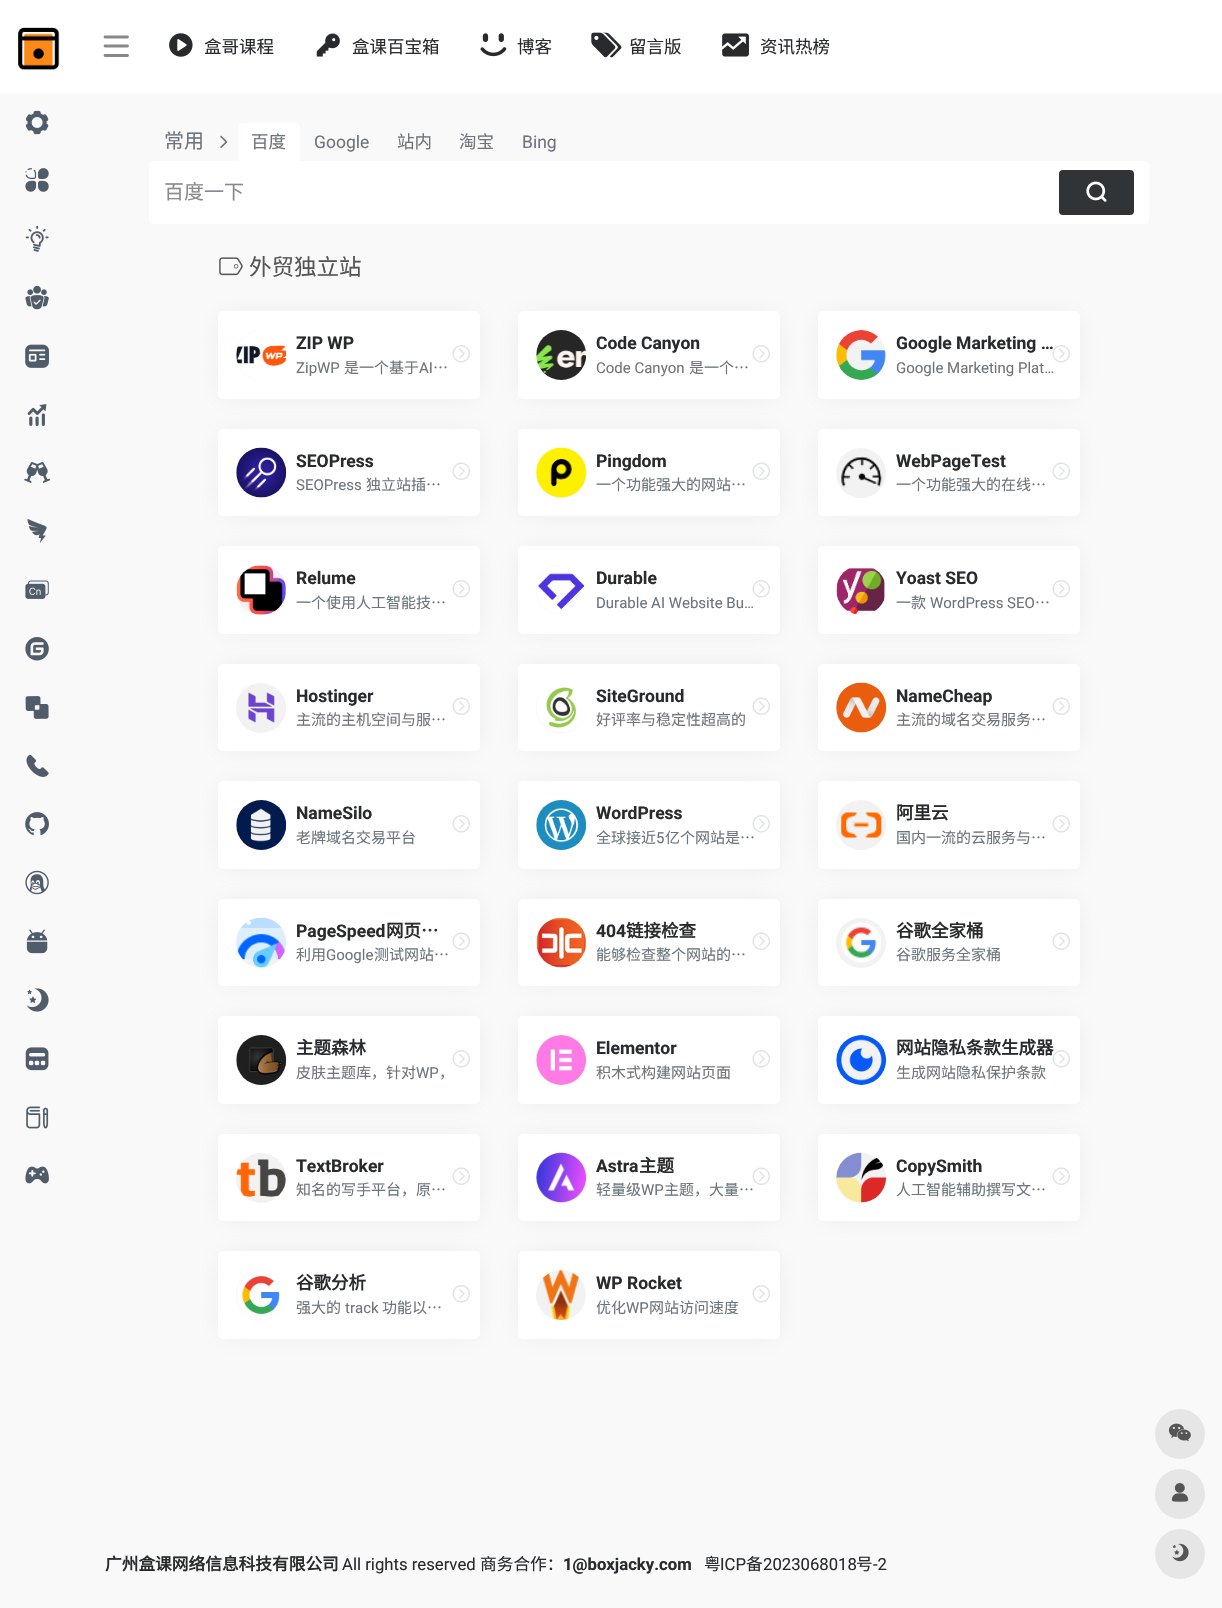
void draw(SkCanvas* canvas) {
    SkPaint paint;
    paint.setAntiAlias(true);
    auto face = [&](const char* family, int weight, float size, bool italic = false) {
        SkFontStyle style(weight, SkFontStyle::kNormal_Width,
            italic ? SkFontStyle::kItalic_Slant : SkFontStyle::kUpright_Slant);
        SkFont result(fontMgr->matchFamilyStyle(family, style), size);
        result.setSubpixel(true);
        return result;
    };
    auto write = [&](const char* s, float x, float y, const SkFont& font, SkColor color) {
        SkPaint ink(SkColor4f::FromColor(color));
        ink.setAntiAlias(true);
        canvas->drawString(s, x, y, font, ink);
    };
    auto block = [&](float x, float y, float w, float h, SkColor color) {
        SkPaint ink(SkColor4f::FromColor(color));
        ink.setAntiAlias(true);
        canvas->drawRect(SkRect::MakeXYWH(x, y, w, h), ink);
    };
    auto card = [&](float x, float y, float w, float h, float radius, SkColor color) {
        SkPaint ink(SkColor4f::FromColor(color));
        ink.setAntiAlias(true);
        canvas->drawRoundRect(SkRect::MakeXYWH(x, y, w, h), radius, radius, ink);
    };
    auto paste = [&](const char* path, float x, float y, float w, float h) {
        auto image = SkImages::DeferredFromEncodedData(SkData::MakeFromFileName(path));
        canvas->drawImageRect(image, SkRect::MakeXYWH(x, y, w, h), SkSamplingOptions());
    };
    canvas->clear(SkColorSetRGB(249, 249, 249));
    block(0, 0, 1222, 93, SK_ColorWHITE);
    paste("pic1.png", 18, 27, 42, 43);
    paste("pic2.png", 25, 110, 24, 25);
    paste("pic3.png", 25, 168, 24, 24);
    paste("pic4.png", 25, 225, 24, 27);
    paste("pic5.png", 25, 285, 24, 25);
    paste("pic6.png", 25, 344, 24, 24);
    paste("pic7.png", 27, 404, 20, 22);
    paste("pic8.png", 24, 462, 27, 21);
    paste("pic9.png", 27, 519, 20, 25);
    paste("pic10.png", 25, 580, 24, 19);
    paste("pic11.png", 25, 637, 24, 24);
    paste("pic12.png", 25, 696, 24, 23);
    paste("pic13.png", 26, 754, 23, 23);
    paste("pic14.png", 25, 812, 24, 24);
    paste("pic15.png", 25, 870, 24, 25);
    paste("pic16.png", 26, 929, 22, 25);
    paste("pic17.png", 26, 988, 23, 24);
    paste("pic18.png", 25, 1047, 24, 24);
    paste("pic19.png", 26, 1106, 23, 23);
    paste("pic20.png", 25, 1166, 24, 18);
    paint.setStyle(SkPaint::kStroke_Style);
    paint.setStrokeWidth(2.8f);
    paint.setStrokeCap(SkPaint::kRound_Cap);
    paint.setStrokeJoin(SkPaint::kRound_Join);
    paint.setColor(SkColorSetRGB(136, 136, 136));
    canvas->drawPath(SkPathBuilder().moveTo(105, 37).lineTo(127.5f, 37).moveTo(105, 46).lineTo(127.5f, 46).moveTo(105, 55.5f).lineTo(127.5f, 55.5f).detach(), paint);
    paste("pic21.png", 169, 33, 24, 24);
    auto kFont1 = face("Noto Sans CJK SC", 400, 17.5f);
    write("盒哥课程", 204, 53, kFont1, SkColorSetRGB(40, 42, 45));
    paste("pic22.png", 316, 33, 24, 24);
    write("盒课百宝箱", 352, 53, kFont1, SkColorSetRGB(40, 42, 45));
    paste("pic23.png", 480, 33, 27, 24);
    write("博客", 517, 53, kFont1, SkColorSetRGB(40, 42, 45));
    paste("pic24.png", 591, 32, 31, 26);
    write("留言版", 629, 53, kFont1, SkColorSetRGB(40, 42, 45));
    paste("pic25.png", 722, 33, 27, 24);
    write("资讯热榜", 760, 53, kFont1, SkColorSetRGB(40, 42, 45));
    auto kFont2 = face("Noto Sans CJK SC", 400, 20);
    write("常用", 164, 148, kFont2, SkColorSetRGB(108, 117, 125));
    paste("pic26.png", 220, 135, 8, 13);
    paint.setStyle(SkPaint::kFill_Style);
    paint.setColor(SK_ColorWHITE);
    canvas->drawPath(SkPathBuilder().moveTo(242, 123).lineTo(296, 123).cubicTo(298, 123, 300, 125, 300, 127).lineTo(300, 161).lineTo(238, 161).lineTo(238, 127).cubicTo(238, 125, 240, 123, 242, 123).close().detach(), paint);
    write("百度", 251, 148, kFont1, SkColorSetRGB(108, 117, 125));
    auto kFont3 = face("Roboto", 400, 17.5f);
    write("Google", 314, 148, kFont3, SkColorSetRGB(108, 117, 125));
    write("站内", 397, 148, kFont1, SkColorSetRGB(108, 117, 125));
    write("淘宝", 459, 148, kFont1, SkColorSetRGB(108, 117, 125));
    write("Bing", 522, 148, kFont3, SkColorSetRGB(108, 117, 125));
    card(149, 161, 1000, 63, 4, SK_ColorWHITE);
    write("百度一下", 164, 199, kFont2, SkColorSetRGB(136, 138, 143));
    card(1059, 170, 75, 45, 4, SkColorSetRGB(49, 52, 55));
    paste("pic27.png", 1086, 181, 21, 21);
    paste("pic28.png", 219, 257, 24, 19);
    auto kFont4 = face("Noto Sans CJK SC", 400, 22.5f);
    write("外贸独立站", 249, 275, kFont4, SkColorSetRGB(85, 85, 85));
    paint.setColor(SkColorSetARGB(51, 158, 158, 158));
    paint.setMaskFilter(SkMaskFilter::MakeBlur(kNormal_SkBlurStyle, 12.5f));
    canvas->drawRect(SkRect::MakeXYWH(224, 318, 250, 75), paint);
    paint.setMaskFilter(nullptr);
    card(218, 311, 262, 88, 5, SK_ColorWHITE);
    paint.setColor(SkColorSetRGB(242, 242, 242));
    canvas->drawCircle(261, 355, 25, paint);
    paste("pic29.png", 236, 330, 51, 50);
    auto kFont5 = face("Roboto", 700, 17.5f);
    write("ZIP WP", 296, 349, kFont5, SkColorSetRGB(40, 42, 45));
    auto kFont6 = face("Roboto", 400, 15);
    write("ZipWP", 296, 373, kFont6, SkColorSetRGB(108, 117, 125));
    auto kFont7 = face("Noto Sans CJK SC", 400, 15);
    write("是一个基于", 344, 373, kFont7, SkColorSetRGB(108, 117, 125));
    write("AI", 419, 373, kFont6, SkColorSetRGB(108, 117, 125));
    write("…", 433, 373, kFont7, SkColorSetRGB(108, 117, 125));
    paste("pic30.png", 452, 345, 18, 18);
    paint.setColor(SkColorSetARGB(51, 158, 158, 158));
    paint.setMaskFilter(SkMaskFilter::MakeBlur(kNormal_SkBlurStyle, 12.5f));
    canvas->drawRect(SkRect::MakeXYWH(524, 318, 250, 75), paint);
    paint.setMaskFilter(nullptr);
    card(518, 311, 262, 88, 5, SK_ColorWHITE);
    paint.setColor(SkColorSetRGB(242, 242, 242));
    canvas->drawCircle(561, 355, 25, paint);
    paste("pic31.png", 536, 330, 51, 50);
    write("Code Canyon", 596, 349, kFont5, SkColorSetRGB(40, 42, 45));
    write("Code Canyon", 596, 373, kFont6, SkColorSetRGB(108, 117, 125));
    write("是一个…", 689, 373, kFont7, SkColorSetRGB(108, 117, 125));
    paste("pic30.png", 752, 345, 18, 18);
    paint.setColor(SkColorSetARGB(51, 158, 158, 158));
    paint.setMaskFilter(SkMaskFilter::MakeBlur(kNormal_SkBlurStyle, 12.5f));
    canvas->drawRect(SkRect::MakeXYWH(824, 318, 250, 75), paint);
    paint.setMaskFilter(nullptr);
    card(818, 311, 262, 88, 5, SK_ColorWHITE);
    paint.setColor(SkColorSetRGB(242, 242, 242));
    canvas->drawCircle(861, 355, 25, paint);
    paste("pic32.png", 836, 330, 50, 50);
    write("Google Marketing …", 896, 349, kFont5, SkColorSetRGB(40, 42, 45));
    write("Google Marketing Plat…", 896, 373, kFont6, SkColorSetRGB(108, 117, 125));
    paste("pic33.png", 1052, 345, 18, 18);
    paint.setColor(SkColorSetARGB(51, 158, 158, 158));
    paint.setMaskFilter(SkMaskFilter::MakeBlur(kNormal_SkBlurStyle, 12.5f));
    canvas->drawRect(SkRect::MakeXYWH(224, 435, 250, 75), paint);
    paint.setMaskFilter(nullptr);
    card(218, 429, 262, 87, 5, SK_ColorWHITE);
    paint.setColor(SkColorSetRGB(242, 242, 242));
    canvas->drawCircle(261, 473, 25, paint);
    paste("pic34.png", 236, 447, 51, 51);
    write("SEOPress", 296, 467, kFont5, SkColorSetRGB(40, 42, 45));
    write("SEOPress", 296, 490, kFont6, SkColorSetRGB(108, 117, 125));
    write("独立站插…", 366, 490, kFont7, SkColorSetRGB(108, 117, 125));
    paste("pic35.png", 452, 462, 18, 18);
    paint.setColor(SkColorSetARGB(51, 158, 158, 158));
    paint.setMaskFilter(SkMaskFilter::MakeBlur(kNormal_SkBlurStyle, 12.5f));
    canvas->drawRect(SkRect::MakeXYWH(524, 435, 250, 75), paint);
    paint.setMaskFilter(nullptr);
    card(518, 429, 262, 87, 5, SK_ColorWHITE);
    paint.setColor(SkColorSetRGB(242, 242, 242));
    canvas->drawCircle(561, 473, 25, paint);
    paste("pic36.png", 536, 447, 51, 51);
    write("Pingdom", 596, 467, kFont5, SkColorSetRGB(40, 42, 45));
    write("一个功能强大的网站…", 596, 490, kFont7, SkColorSetRGB(108, 117, 125));
    paste("pic35.png", 752, 462, 18, 18);
    paint.setColor(SkColorSetARGB(51, 158, 158, 158));
    paint.setMaskFilter(SkMaskFilter::MakeBlur(kNormal_SkBlurStyle, 12.5f));
    canvas->drawRect(SkRect::MakeXYWH(824, 435, 250, 75), paint);
    paint.setMaskFilter(nullptr);
    card(818, 429, 262, 87, 5, SK_ColorWHITE);
    paint.setColor(SkColorSetRGB(242, 242, 242));
    canvas->drawCircle(861, 473, 25, paint);
    paste("pic37.png", 841, 456, 41, 31);
    write("WebPageTest", 896, 467, kFont5, SkColorSetRGB(40, 42, 45));
    write("一个功能强大的在线…", 896, 490, kFont7, SkColorSetRGB(108, 117, 125));
    paste("pic35.png", 1052, 462, 18, 18);
    paint.setColor(SkColorSetARGB(51, 158, 158, 158));
    paint.setMaskFilter(SkMaskFilter::MakeBlur(kNormal_SkBlurStyle, 12.5f));
    canvas->drawRect(SkRect::MakeXYWH(224, 553, 250, 75), paint);
    paint.setMaskFilter(nullptr);
    card(218, 546, 262, 88, 5, SK_ColorWHITE);
    paint.setColor(SkColorSetRGB(242, 242, 242));
    canvas->drawCircle(261, 590, 25, paint);
    paste("pic38.png", 236, 565, 50, 50);
    write("Relume", 296, 584, kFont5, SkColorSetRGB(40, 42, 45));
    write("一个使用人工智能技…", 296, 608, kFont7, SkColorSetRGB(108, 117, 125));
    paste("pic30.png", 452, 580, 18, 18);
    paint.setColor(SkColorSetARGB(51, 158, 158, 158));
    paint.setMaskFilter(SkMaskFilter::MakeBlur(kNormal_SkBlurStyle, 12.5f));
    canvas->drawRect(SkRect::MakeXYWH(524, 553, 250, 75), paint);
    paint.setMaskFilter(nullptr);
    card(518, 546, 262, 88, 5, SK_ColorWHITE);
    paint.setColor(SkColorSetRGB(242, 242, 242));
    canvas->drawCircle(561, 590, 25, paint);
    paste("pic39.png", 536, 565, 50, 50);
    write("Durable", 596, 584, kFont5, SkColorSetRGB(40, 42, 45));
    write("Durable AI Website Bu…", 596, 608, kFont6, SkColorSetRGB(108, 117, 125));
    paste("pic30.png", 752, 580, 18, 18);
    paint.setColor(SkColorSetARGB(51, 158, 158, 158));
    paint.setMaskFilter(SkMaskFilter::MakeBlur(kNormal_SkBlurStyle, 12.5f));
    canvas->drawRect(SkRect::MakeXYWH(824, 553, 250, 75), paint);
    paint.setMaskFilter(nullptr);
    card(818, 546, 262, 88, 5, SK_ColorWHITE);
    paint.setColor(SkColorSetRGB(242, 242, 242));
    canvas->drawCircle(861, 590, 25, paint);
    paste("pic40.png", 836, 565, 50, 50);
    write("Yoast SEO", 896, 584, kFont5, SkColorSetRGB(40, 42, 45));
    write("一款", 896, 608, kFont7, SkColorSetRGB(108, 117, 125));
    write("WordPress SEO", 930, 608, kFont6, SkColorSetRGB(108, 117, 125));
    write("…", 1035, 608, kFont7, SkColorSetRGB(108, 117, 125));
    paste("pic30.png", 1052, 580, 18, 18);
    paint.setColor(SkColorSetARGB(51, 158, 158, 158));
    paint.setMaskFilter(SkMaskFilter::MakeBlur(kNormal_SkBlurStyle, 12.5f));
    canvas->drawRect(SkRect::MakeXYWH(224, 670, 250, 75), paint);
    paint.setMaskFilter(nullptr);
    card(218, 664, 262, 87, 5, SK_ColorWHITE);
    paint.setColor(SkColorSetRGB(242, 242, 242));
    canvas->drawCircle(261, 708, 25, paint);
    paste("pic41.png", 248, 692, 27, 31);
    write("Hostinger", 296, 702, kFont5, SkColorSetRGB(40, 42, 45));
    write("主流的主机空间与服…", 296, 725, kFont7, SkColorSetRGB(108, 117, 125));
    paste("pic35.png", 452, 697, 18, 18);
    paint.setColor(SkColorSetARGB(51, 158, 158, 158));
    paint.setMaskFilter(SkMaskFilter::MakeBlur(kNormal_SkBlurStyle, 12.5f));
    canvas->drawRect(SkRect::MakeXYWH(524, 670, 250, 75), paint);
    paint.setMaskFilter(nullptr);
    card(518, 664, 262, 87, 5, SK_ColorWHITE);
    paint.setColor(SkColorSetRGB(242, 242, 242));
    canvas->drawCircle(561, 708, 25, paint);
    paste("pic42.png", 536, 683, 50, 49);
    write("SiteGround", 596, 702, kFont5, SkColorSetRGB(40, 42, 45));
    write("好评率与稳定性超高的", 596, 725, kFont7, SkColorSetRGB(108, 117, 125));
    paste("pic35.png", 752, 697, 18, 18);
    paint.setColor(SkColorSetARGB(51, 158, 158, 158));
    paint.setMaskFilter(SkMaskFilter::MakeBlur(kNormal_SkBlurStyle, 12.5f));
    canvas->drawRect(SkRect::MakeXYWH(824, 670, 250, 75), paint);
    paint.setMaskFilter(nullptr);
    card(818, 664, 262, 87, 5, SK_ColorWHITE);
    paint.setColor(SkColorSetRGB(242, 242, 242));
    canvas->drawCircle(861, 708, 25, paint);
    paste("pic43.png", 836, 682, 51, 51);
    write("NameCheap", 896, 702, kFont5, SkColorSetRGB(40, 42, 45));
    write("主流的域名交易服务…", 896, 725, kFont7, SkColorSetRGB(108, 117, 125));
    paste("pic35.png", 1052, 697, 18, 18);
    paint.setColor(SkColorSetARGB(51, 158, 158, 158));
    paint.setMaskFilter(SkMaskFilter::MakeBlur(kNormal_SkBlurStyle, 12.5f));
    canvas->drawRect(SkRect::MakeXYWH(224, 788, 250, 75), paint);
    paint.setMaskFilter(nullptr);
    card(218, 781, 262, 88, 5, SK_ColorWHITE);
    paint.setColor(SkColorSetRGB(242, 242, 242));
    canvas->drawCircle(261, 825, 25, paint);
    paste("pic44.png", 236, 800, 51, 50);
    write("NameSilo", 296, 819, kFont5, SkColorSetRGB(40, 42, 45));
    write("老牌域名交易平台", 296, 843, kFont7, SkColorSetRGB(108, 117, 125));
    paste("pic30.png", 452, 815, 18, 18);
    paint.setColor(SkColorSetARGB(51, 158, 158, 158));
    paint.setMaskFilter(SkMaskFilter::MakeBlur(kNormal_SkBlurStyle, 12.5f));
    canvas->drawRect(SkRect::MakeXYWH(524, 788, 250, 75), paint);
    paint.setMaskFilter(nullptr);
    card(518, 781, 262, 88, 5, SK_ColorWHITE);
    paint.setColor(SkColorSetRGB(242, 242, 242));
    canvas->drawCircle(561, 825, 25, paint);
    paste("pic45.png", 536, 800, 51, 50);
    write("WordPress", 596, 819, kFont5, SkColorSetRGB(40, 42, 45));
    write("全球接近", 596, 843, kFont7, SkColorSetRGB(108, 117, 125));
    write("5", 656, 843, kFont6, SkColorSetRGB(108, 117, 125));
    write("亿个网站是…", 665, 843, kFont7, SkColorSetRGB(108, 117, 125));
    paste("pic30.png", 752, 815, 18, 18);
    paint.setColor(SkColorSetARGB(51, 158, 158, 158));
    paint.setMaskFilter(SkMaskFilter::MakeBlur(kNormal_SkBlurStyle, 12.5f));
    canvas->drawRect(SkRect::MakeXYWH(824, 788, 250, 75), paint);
    paint.setMaskFilter(nullptr);
    card(818, 781, 262, 88, 5, SK_ColorWHITE);
    paint.setColor(SkColorSetRGB(242, 242, 242));
    canvas->drawCircle(861, 825, 25, paint);
    paste("pic46.png", 841, 812, 41, 26);
    auto kFont8 = face("Noto Sans CJK SC", 700, 17.5f);
    write("阿里云", 896, 819, kFont8, SkColorSetRGB(40, 42, 45));
    write("国内一流的云服务与…", 896, 843, kFont7, SkColorSetRGB(108, 117, 125));
    paste("pic30.png", 1052, 815, 18, 18);
    paint.setColor(SkColorSetARGB(51, 158, 158, 158));
    paint.setMaskFilter(SkMaskFilter::MakeBlur(kNormal_SkBlurStyle, 12.5f));
    canvas->drawRect(SkRect::MakeXYWH(224, 905, 250, 75), paint);
    paint.setMaskFilter(nullptr);
    card(218, 899, 262, 87, 5, SK_ColorWHITE);
    paint.setColor(SkColorSetRGB(242, 242, 242));
    canvas->drawCircle(261, 943, 25, paint);
    paste("pic47.png", 236, 917, 50, 51);
    write("PageSpeed", 296, 937, kFont5, SkColorSetRGB(40, 42, 45));
    write("网页…", 386, 937, kFont8, SkColorSetRGB(40, 42, 45));
    write("利用", 296, 960, kFont7, SkColorSetRGB(108, 117, 125));
    write("Google", 326, 960, kFont6, SkColorSetRGB(108, 117, 125));
    write("测试网站…", 374, 960, kFont7, SkColorSetRGB(108, 117, 125));
    paste("pic35.png", 452, 932, 18, 18);
    paint.setColor(SkColorSetARGB(51, 158, 158, 158));
    paint.setMaskFilter(SkMaskFilter::MakeBlur(kNormal_SkBlurStyle, 12.5f));
    canvas->drawRect(SkRect::MakeXYWH(524, 905, 250, 75), paint);
    paint.setMaskFilter(nullptr);
    card(518, 899, 262, 87, 5, SK_ColorWHITE);
    paint.setColor(SkColorSetRGB(242, 242, 242));
    canvas->drawCircle(561, 943, 25, paint);
    paste("pic48.png", 536, 917, 51, 51);
    write("404", 596, 937, kFont5, SkColorSetRGB(40, 42, 45));
    write("链接检查", 626, 937, kFont8, SkColorSetRGB(40, 42, 45));
    write("能够检查整个网站的…", 596, 960, kFont7, SkColorSetRGB(108, 117, 125));
    paste("pic35.png", 752, 932, 18, 18);
    paint.setColor(SkColorSetARGB(51, 158, 158, 158));
    paint.setMaskFilter(SkMaskFilter::MakeBlur(kNormal_SkBlurStyle, 12.5f));
    canvas->drawRect(SkRect::MakeXYWH(824, 905, 250, 75), paint);
    paint.setMaskFilter(nullptr);
    card(818, 899, 262, 87, 5, SK_ColorWHITE);
    paint.setColor(SkColorSetRGB(242, 242, 242));
    canvas->drawCircle(861, 943, 25, paint);
    paste("pic49.png", 841, 922, 40, 41);
    write("谷歌全家桶", 896, 937, kFont8, SkColorSetRGB(40, 42, 45));
    write("谷歌服务全家桶", 896, 960, kFont7, SkColorSetRGB(108, 117, 125));
    paste("pic35.png", 1052, 932, 18, 18);
    paint.setColor(SkColorSetARGB(51, 158, 158, 158));
    paint.setMaskFilter(SkMaskFilter::MakeBlur(kNormal_SkBlurStyle, 12.5f));
    canvas->drawRect(SkRect::MakeXYWH(224, 1023, 250, 75), paint);
    paint.setMaskFilter(nullptr);
    card(218, 1016, 262, 88, 5, SK_ColorWHITE);
    paint.setColor(SkColorSetRGB(242, 242, 242));
    canvas->drawCircle(261, 1060, 25, paint);
    paste("pic50.png", 236, 1035, 51, 50);
    write("主题森林", 296, 1054, kFont8, SkColorSetRGB(40, 42, 45));
    write("皮肤主题库，针对", 296, 1078, kFont7, SkColorSetRGB(108, 117, 125));
    write("WP", 416, 1078, kFont6, SkColorSetRGB(108, 117, 125));
    write("，", 439, 1078, kFont7, SkColorSetRGB(108, 117, 125));
    paste("pic30.png", 452, 1050, 18, 18);
    paint.setColor(SkColorSetARGB(51, 158, 158, 158));
    paint.setMaskFilter(SkMaskFilter::MakeBlur(kNormal_SkBlurStyle, 12.5f));
    canvas->drawRect(SkRect::MakeXYWH(524, 1023, 250, 75), paint);
    paint.setMaskFilter(nullptr);
    card(518, 1016, 262, 88, 5, SK_ColorWHITE);
    paint.setColor(SkColorSetRGB(242, 242, 242));
    canvas->drawCircle(561, 1060, 25, paint);
    paste("pic51.png", 536, 1035, 51, 50);
    write("Elementor", 596, 1054, kFont5, SkColorSetRGB(40, 42, 45));
    write("积木式构建网站页面", 596, 1078, kFont7, SkColorSetRGB(108, 117, 125));
    paste("pic30.png", 752, 1050, 18, 18);
    paint.setColor(SkColorSetARGB(51, 158, 158, 158));
    paint.setMaskFilter(SkMaskFilter::MakeBlur(kNormal_SkBlurStyle, 12.5f));
    canvas->drawRect(SkRect::MakeXYWH(824, 1023, 250, 75), paint);
    paint.setMaskFilter(nullptr);
    card(818, 1016, 262, 88, 5, SK_ColorWHITE);
    paint.setColor(SkColorSetRGB(242, 242, 242));
    canvas->drawCircle(861, 1060, 25, paint);
    paste("pic52.png", 836, 1035, 51, 50);
    write("网站隐私条款生成器", 896, 1054, kFont8, SkColorSetRGB(40, 42, 45));
    write("生成网站隐私保护条款", 896, 1078, kFont7, SkColorSetRGB(108, 117, 125));
    paste("pic53.png", 1052, 1050, 18, 18);
    paint.setColor(SkColorSetARGB(51, 158, 158, 158));
    paint.setMaskFilter(SkMaskFilter::MakeBlur(kNormal_SkBlurStyle, 12.5f));
    canvas->drawRect(SkRect::MakeXYWH(224, 1140, 250, 75), paint);
    paint.setMaskFilter(nullptr);
    card(218, 1134, 262, 87, 5, SK_ColorWHITE);
    paint.setColor(SkColorSetRGB(242, 242, 242));
    canvas->drawCircle(261, 1178, 25, paint);
    paste("pic54.png", 236, 1159, 50, 38);
    write("TextBroker", 296, 1172, kFont5, SkColorSetRGB(40, 42, 45));
    write("知名的写手平台，原…", 296, 1195, kFont7, SkColorSetRGB(108, 117, 125));
    paste("pic35.png", 452, 1167, 18, 18);
    paint.setColor(SkColorSetARGB(51, 158, 158, 158));
    paint.setMaskFilter(SkMaskFilter::MakeBlur(kNormal_SkBlurStyle, 12.5f));
    canvas->drawRect(SkRect::MakeXYWH(524, 1140, 250, 75), paint);
    paint.setMaskFilter(nullptr);
    card(518, 1134, 262, 87, 5, SK_ColorWHITE);
    paint.setColor(SkColorSetRGB(242, 242, 242));
    canvas->drawCircle(561, 1178, 25, paint);
    paste("pic55.png", 536, 1152, 51, 51);
    write("Astra", 596, 1172, kFont5, SkColorSetRGB(40, 42, 45));
    write("主题", 639, 1172, kFont8, SkColorSetRGB(40, 42, 45));
    write("轻量级", 596, 1195, kFont7, SkColorSetRGB(108, 117, 125));
    write("WP", 641, 1195, kFont6, SkColorSetRGB(108, 117, 125));
    write("主题，大量…", 664, 1195, kFont7, SkColorSetRGB(108, 117, 125));
    paste("pic35.png", 752, 1167, 18, 18);
    paint.setColor(SkColorSetARGB(51, 158, 158, 158));
    paint.setMaskFilter(SkMaskFilter::MakeBlur(kNormal_SkBlurStyle, 12.5f));
    canvas->drawRect(SkRect::MakeXYWH(824, 1140, 250, 75), paint);
    paint.setMaskFilter(nullptr);
    card(818, 1134, 262, 87, 5, SK_ColorWHITE);
    paint.setColor(SkColorSetRGB(242, 242, 242));
    canvas->drawCircle(861, 1178, 25, paint);
    paste("pic56.png", 836, 1152, 51, 51);
    write("CopySmith", 896, 1172, kFont5, SkColorSetRGB(40, 42, 45));
    write("人工智能辅助撰写文…", 896, 1195, kFont7, SkColorSetRGB(108, 117, 125));
    paste("pic35.png", 1052, 1167, 18, 18);
    paint.setColor(SkColorSetARGB(51, 158, 158, 158));
    paint.setMaskFilter(SkMaskFilter::MakeBlur(kNormal_SkBlurStyle, 12.5f));
    canvas->drawRect(SkRect::MakeXYWH(224, 1258, 250, 75), paint);
    paint.setMaskFilter(nullptr);
    card(218, 1251, 262, 88, 5, SK_ColorWHITE);
    paint.setColor(SkColorSetRGB(242, 242, 242));
    canvas->drawCircle(261, 1295, 25, paint);
    paste("pic57.png", 236, 1270, 50, 50);
    write("谷歌分析", 296, 1289, kFont8, SkColorSetRGB(40, 42, 45));
    write("强大的", 296, 1313, kFont7, SkColorSetRGB(108, 117, 125));
    write("track", 345, 1313, kFont6, SkColorSetRGB(108, 117, 125));
    write("功能以…", 382, 1313, kFont7, SkColorSetRGB(108, 117, 125));
    paste("pic30.png", 452, 1285, 18, 18);
    paint.setColor(SkColorSetARGB(51, 158, 158, 158));
    paint.setMaskFilter(SkMaskFilter::MakeBlur(kNormal_SkBlurStyle, 12.5f));
    canvas->drawRect(SkRect::MakeXYWH(524, 1258, 250, 75), paint);
    paint.setMaskFilter(nullptr);
    card(518, 1251, 262, 88, 5, SK_ColorWHITE);
    paint.setColor(SkColorSetRGB(242, 242, 242));
    canvas->drawCircle(561, 1295, 25, paint);
    paste("pic58.png", 542, 1270, 37, 50);
    write("WP Rocket", 596, 1289, kFont5, SkColorSetRGB(40, 42, 45));
    write("优化", 596, 1313, kFont7, SkColorSetRGB(108, 117, 125));
    write("WP", 626, 1313, kFont6, SkColorSetRGB(108, 117, 125));
    write("网站访问速度", 649, 1313, kFont7, SkColorSetRGB(108, 117, 125));
    paste("pic30.png", 752, 1285, 18, 18);
    auto kFont9 = face("Noto Sans CJK SC", 700, 16.7f);
    write("广州盒课网络信息科技有限公司", 105, 1570, kFont9, SkColorSetRGB(40, 42, 45));
    auto kFont10 = face("Roboto", 400, 16.7f);
    write("All rights reserved", 342, 1570, kFont10, SkColorSetRGB(40, 42, 45));
    auto kFont11 = face("Noto Sans CJK SC", 400, 16.7f);
    write("商务合作：", 480, 1570, kFont11, SkColorSetRGB(40, 42, 45));
    auto kFont12 = face("Roboto", 700, 16.7f);
    write("1@boxjacky.com", 563, 1570, kFont12, SkColorSetRGB(40, 42, 45));
    write("粤", 704, 1570, kFont11, SkColorSetRGB(40, 42, 45));
    write("ICP", 720, 1570, kFont10, SkColorSetRGB(40, 42, 45));
    write("备", 746, 1570, kFont11, SkColorSetRGB(40, 42, 45));
    write("2023068018", 763, 1570, kFont10, SkColorSetRGB(40, 42, 45));
    write("号", 856, 1570, kFont11, SkColorSetRGB(40, 42, 45));
    write("-2", 873, 1570, kFont10, SkColorSetRGB(40, 42, 45));
    paint.setColor(SkColorSetRGB(230, 230, 230));
    canvas->drawCircle(1180, 1434, 25, paint);
    paste("pic59.png", 1168, 1423, 23, 19);
    canvas->drawCircle(1180, 1494, 25, paint);
    paste("pic60.png", 1171, 1483, 18, 19);
    canvas->drawCircle(1180, 1554, 25, paint);
    paste("pic61.png", 1172, 1543, 17, 19);
}
